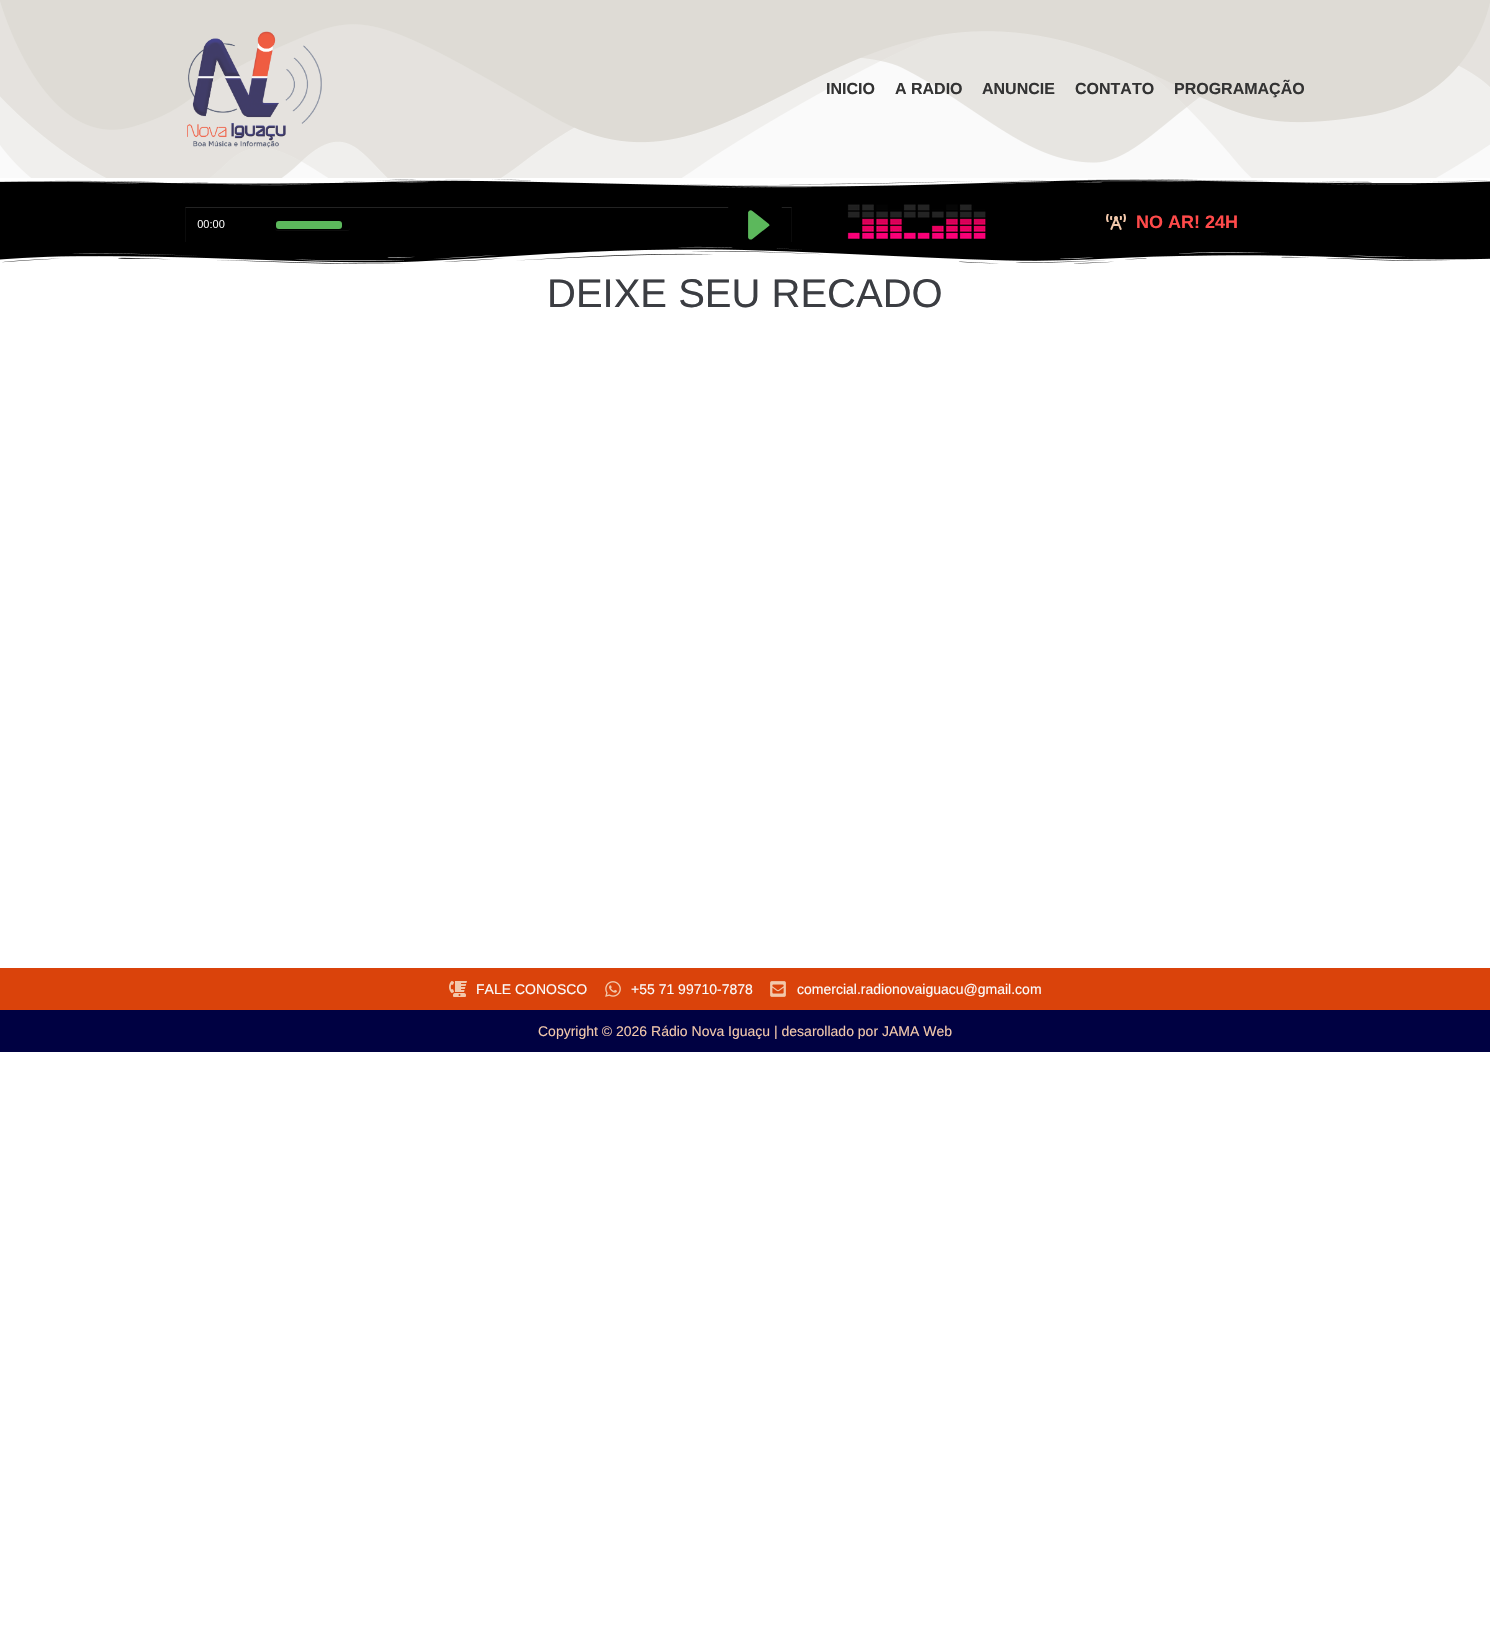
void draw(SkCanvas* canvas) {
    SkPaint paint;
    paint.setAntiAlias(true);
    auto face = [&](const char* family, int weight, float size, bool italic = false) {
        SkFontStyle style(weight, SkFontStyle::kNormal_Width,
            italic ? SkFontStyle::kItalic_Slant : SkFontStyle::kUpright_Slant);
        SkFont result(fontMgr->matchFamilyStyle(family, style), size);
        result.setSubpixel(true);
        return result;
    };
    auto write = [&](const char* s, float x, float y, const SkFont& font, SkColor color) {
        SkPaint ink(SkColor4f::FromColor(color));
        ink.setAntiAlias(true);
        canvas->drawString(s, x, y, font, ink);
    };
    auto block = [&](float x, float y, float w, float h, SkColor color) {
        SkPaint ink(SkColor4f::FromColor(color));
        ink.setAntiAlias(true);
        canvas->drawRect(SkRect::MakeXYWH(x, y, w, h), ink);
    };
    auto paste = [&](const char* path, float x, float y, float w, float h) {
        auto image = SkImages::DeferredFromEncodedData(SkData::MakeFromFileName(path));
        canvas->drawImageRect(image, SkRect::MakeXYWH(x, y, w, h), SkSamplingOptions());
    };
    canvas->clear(SK_ColorWHITE);
    block(0, 1, 1490, 177, SkColorSetRGB(250, 250, 250));
    paste("pic1.png", 0, 0, 1490, 178);
    paste("pic2.png", 187, 31, 135, 117);
    auto kFont1 = face("Liberation Sans", 700, 16);
    write("INICIO", 826, 94, kFont1, SkColorSetRGB(51, 51, 51));
    write("A RADIO", 895, 94, kFont1, SkColorSetRGB(51, 51, 51));
    write("ANUNCIE", 982, 94, kFont1, SkColorSetRGB(51, 51, 51));
    write("CONTATO", 1075, 94, kFont1, SkColorSetRGB(51, 51, 51));
    write("PROGRAMAÇÃO", 1174, 94, kFont1, SkColorSetRGB(51, 51, 51));
    block(0, 179, 1490, 85, SK_ColorBLACK);
    paste("pic3.png", 0, 178, 1490, 10);
    paste("pic7.png", 0, 246, 1490, 19);
    paste("pic4.png", 185, 207, 607, 42);
    paste("pic5.png", 847, 204, 139, 35);
    paste("pic6.png", 1106, 214, 20, 16);
    auto kFont2 = face("Liberation Sans", 700, 18);
    write("NO AR! 24H", 1136, 228, kFont2, SkColorSetRGB(255, 74, 74));
    auto kFont3 = face("Liberation Sans", 400, 40);
    write("DEIXE SEU RECADO", 547, 307, kFont3, SkColorSetRGB(59, 61, 66));
    block(0, 968, 1490, 42, SkColorSetRGB(218, 67, 11));
    paste("pic8.png", 449, 981, 18, 16);
    auto kFont4 = face("Liberation Sans", 400, 14);
    write("FALE CONOSCO", 476, 994, kFont4, SkColorSetRGB(251, 251, 251));
    paste("pic9.png", 605, 981, 16, 16);
    write("+55 71 99710-7878", 631, 994, kFont4, SkColorSetRGB(251, 251, 251));
    paste("pic10.png", 770, 981, 16, 16);
    write("comercial.radionovaiguacu@gmail.com", 797, 994, kFont4, SkColorSetRGB(251, 251, 251));
    block(0, 1010, 1490, 42, SkColorSetRGB(0, 1, 66));
    write("Copyright © 2026 Rádio Nova Iguaçu | desarollado por JAMA Web", 538, 1036, kFont4, SkColorSetRGB(242, 200, 171));
}
